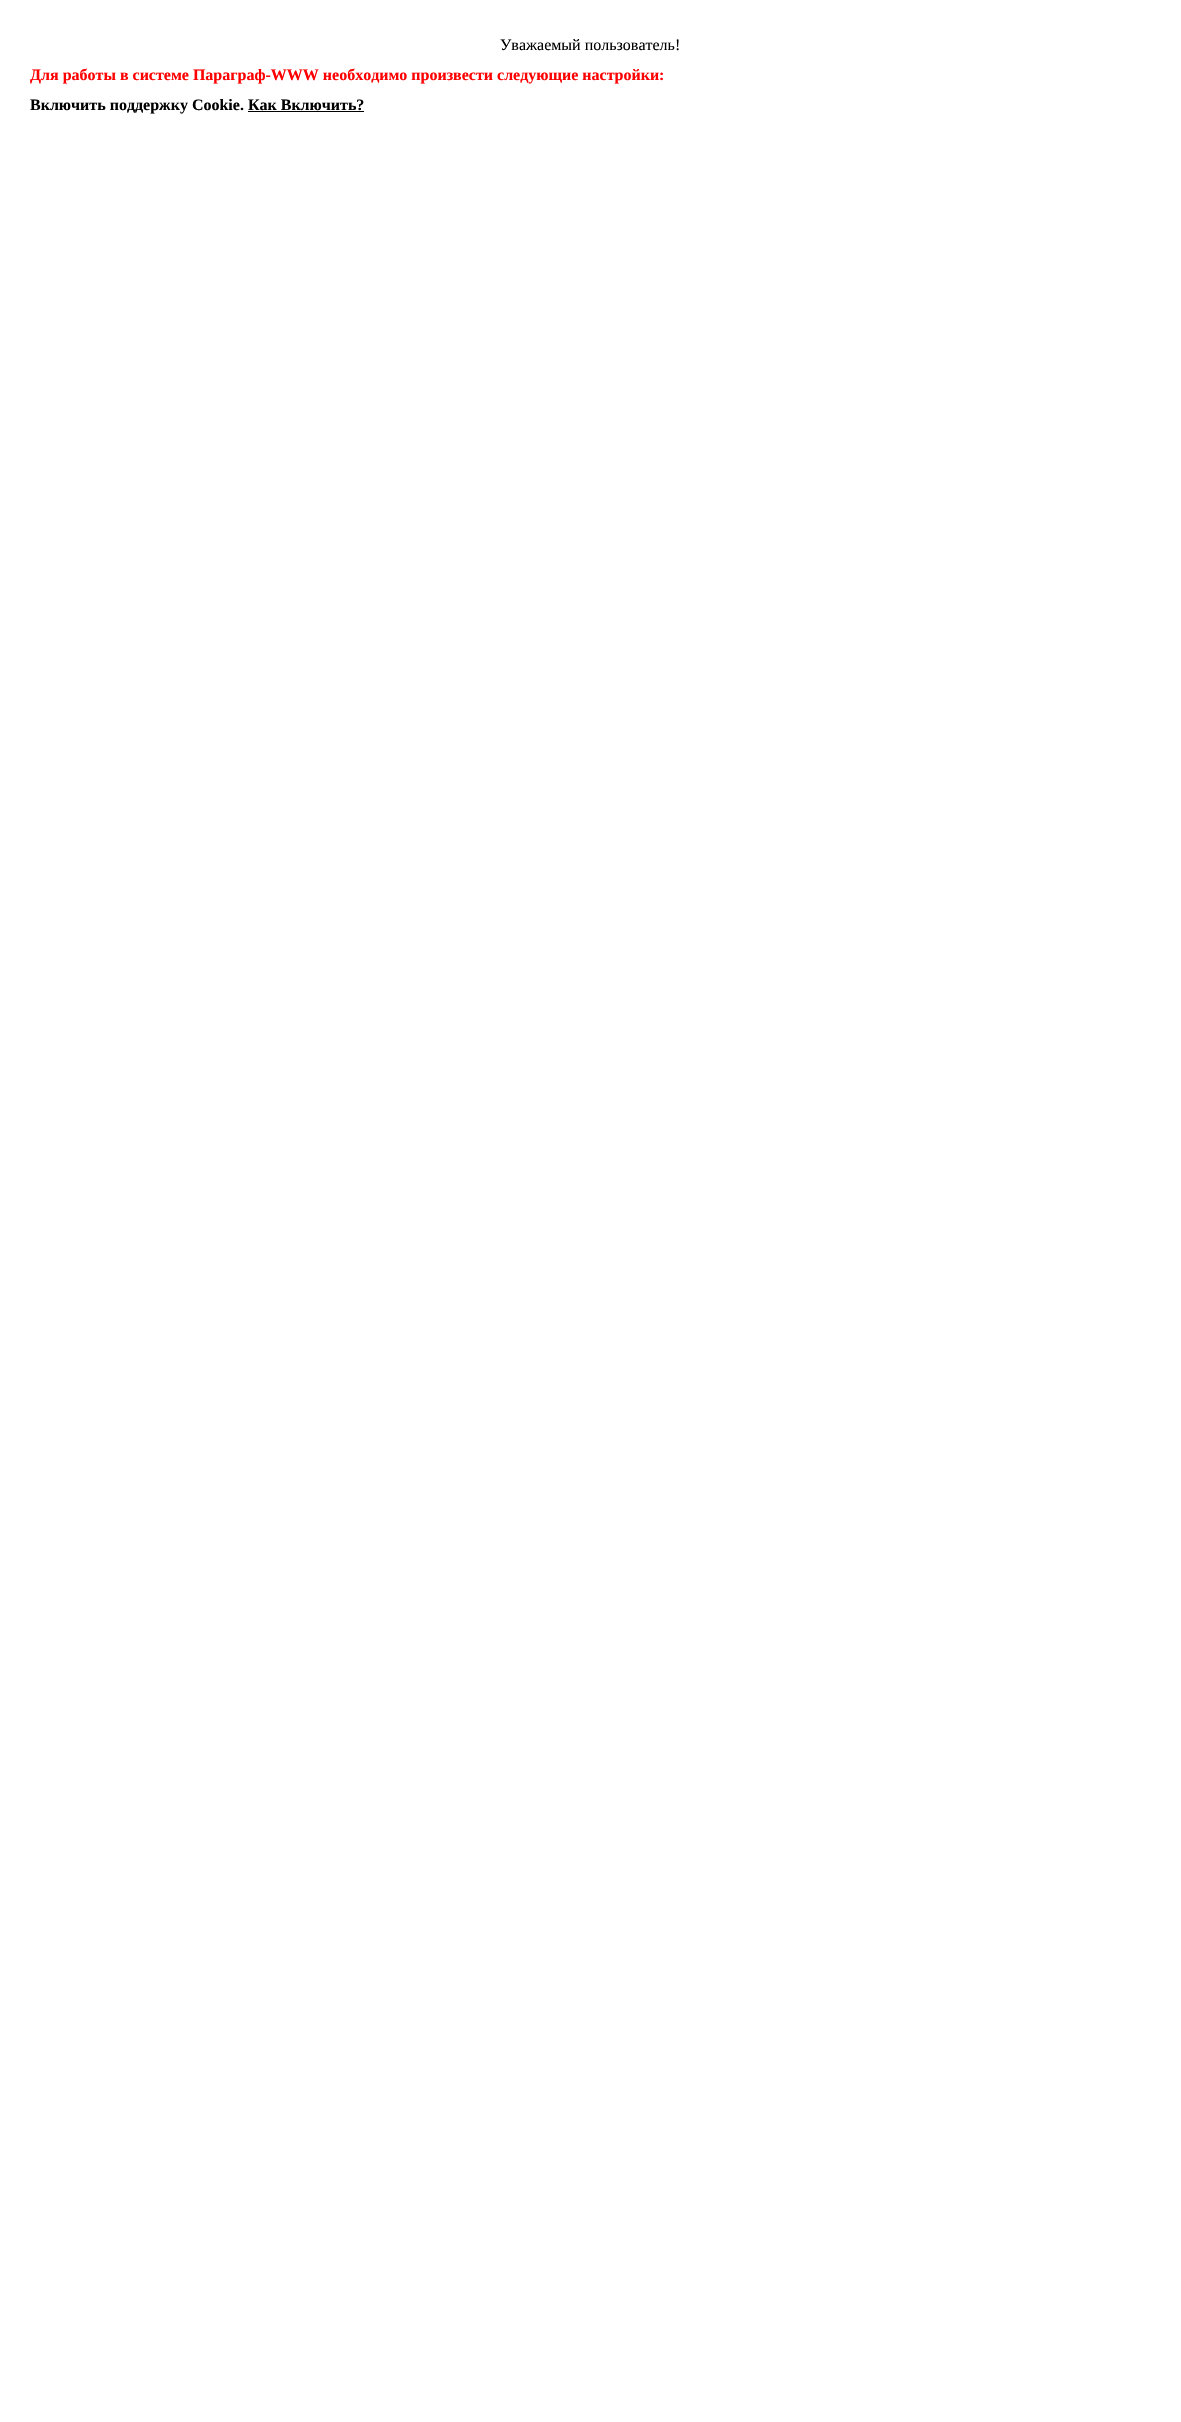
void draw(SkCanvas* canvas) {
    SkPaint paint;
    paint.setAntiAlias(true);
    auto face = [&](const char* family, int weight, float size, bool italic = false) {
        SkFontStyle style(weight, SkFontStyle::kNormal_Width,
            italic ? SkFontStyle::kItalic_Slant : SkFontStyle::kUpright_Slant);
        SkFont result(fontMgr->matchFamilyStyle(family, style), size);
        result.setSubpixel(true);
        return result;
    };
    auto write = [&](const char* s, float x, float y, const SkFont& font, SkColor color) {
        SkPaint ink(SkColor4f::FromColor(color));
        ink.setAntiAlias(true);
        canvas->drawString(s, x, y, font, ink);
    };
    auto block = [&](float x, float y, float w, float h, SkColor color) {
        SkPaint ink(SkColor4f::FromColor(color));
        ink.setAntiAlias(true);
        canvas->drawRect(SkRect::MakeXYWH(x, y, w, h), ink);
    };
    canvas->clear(SK_ColorWHITE);
    auto kFont1 = face("Liberation Serif", 400, 16);
    write("Уважаемый пользователь!", 500, 50, kFont1, SK_ColorBLACK);
    auto kFont2 = face("Liberation Serif", 700, 16);
    write("Для работы в системе Параграф-WWW необходимо произвести следующие настройки:", 30, 80, kFont2, SkColorSetRGB(255, 0, 0));
    write("Включить поддержку Cookie. Как Включить?", 30, 110, kFont2, SK_ColorBLACK);
    block(248, 111, 116, 1, SK_ColorBLACK);
}
